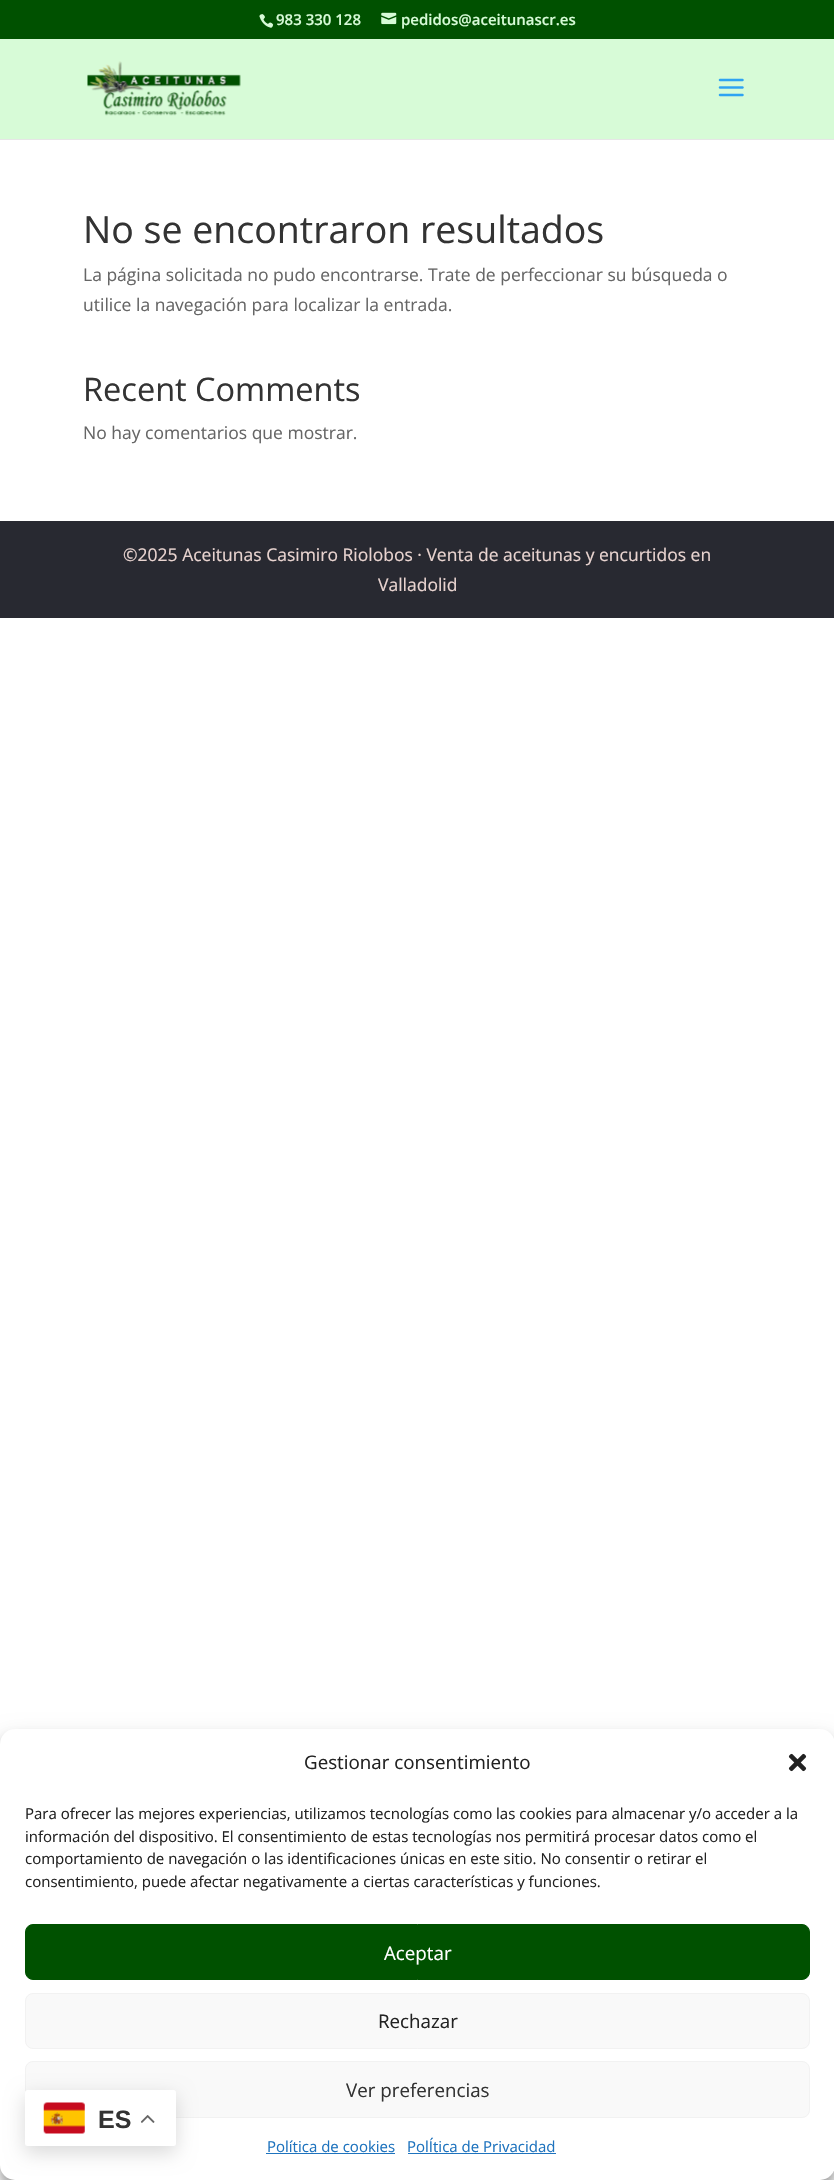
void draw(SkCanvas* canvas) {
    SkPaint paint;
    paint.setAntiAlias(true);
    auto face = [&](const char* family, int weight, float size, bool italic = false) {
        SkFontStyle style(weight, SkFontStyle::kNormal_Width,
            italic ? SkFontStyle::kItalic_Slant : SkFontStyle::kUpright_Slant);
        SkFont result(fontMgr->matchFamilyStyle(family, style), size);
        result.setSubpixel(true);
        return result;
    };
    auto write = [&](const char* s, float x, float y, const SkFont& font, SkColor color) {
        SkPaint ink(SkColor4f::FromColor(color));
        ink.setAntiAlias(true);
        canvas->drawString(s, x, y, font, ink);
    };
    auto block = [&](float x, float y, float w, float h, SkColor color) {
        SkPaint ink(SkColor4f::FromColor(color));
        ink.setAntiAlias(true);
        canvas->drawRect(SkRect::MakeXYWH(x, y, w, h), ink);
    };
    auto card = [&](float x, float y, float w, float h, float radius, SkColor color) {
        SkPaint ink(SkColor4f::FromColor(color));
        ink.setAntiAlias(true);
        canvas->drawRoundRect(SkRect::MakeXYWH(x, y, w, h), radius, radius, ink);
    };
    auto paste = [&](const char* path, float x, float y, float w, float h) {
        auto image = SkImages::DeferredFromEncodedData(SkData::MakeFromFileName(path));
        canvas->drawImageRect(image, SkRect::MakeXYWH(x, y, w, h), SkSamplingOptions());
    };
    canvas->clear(SK_ColorWHITE);
    block(0, 0, 834, 39, SkColorSetRGB(0, 81, 0));
    paste("pic1.png", 259, 14, 15, 14);
    auto kFont1 = face("Open Sans", 600, 15);
    write("983 330 128", 276, 25, kFont1, SkColorSetRGB(215, 251, 215));
    paste("pic2.png", 381, 12, 16, 13);
    write("pedidos@aceitunascr.es", 401, 25, kFont1, SkColorSetRGB(215, 251, 215));
    block(0, 139, 834, 1, SkColorSetRGB(230, 230, 230));
    block(0, 39, 834, 100, SkColorSetRGB(215, 251, 215));
    paste("pic3.png", 87, 61, 154, 55);
    paste("pic4.png", 718, 78, 26, 19);
    auto kFont2 = face("Open Sans", 400, 37.5f);
    write("No se encontraron resultados", 83, 243, kFont2, SkColorSetRGB(51, 51, 51));
    auto kFont3 = face("Open Sans", 400, 17.5f);
    write("La página solicitada no pudo encontrarse. Trate de perfeccionar su búsqueda o", 83, 281, kFont3, SkColorSetRGB(102, 102, 102));
    write("utilice la navegación para localizar la entrada.", 83, 311, kFont3, SkColorSetRGB(102, 102, 102));
    auto kFont4 = face("Open Sans", 400, 32.5f);
    write("Recent Comments", 83, 401, kFont4, SkColorSetRGB(51, 51, 51));
    write("No hay comentarios que mostrar.", 83, 439, kFont3, SkColorSetRGB(102, 102, 102));
    block(0, 521, 834, 97, SkColorSetRGB(40, 41, 49));
    write("©2025 Aceitunas Casimiro Riolobos · Venta de aceitunas y encurtidos en", 123, 561, kFont3, SkColorSetRGB(233, 212, 208));
    write("Valladolid", 378, 591, kFont3, SkColorSetRGB(233, 212, 208));
    paint.setColor(SkColorSetARGB(59, 0, 0, 0));
    paint.setMaskFilter(SkMaskFilter::MakeBlur(kNormal_SkBlurStyle, 4));
    canvas->drawRoundRect(SkRect::MakeXYWH(0, 1736, 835, 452), 15, 15, paint);
    paint.setMaskFilter(nullptr);
    paint.setColor(SkColorSetARGB(48, 0, 0, 0));
    paint.setMaskFilter(SkMaskFilter::MakeBlur(kNormal_SkBlurStyle, 12.5f));
    canvas->drawRoundRect(SkRect::MakeXYWH(0, 1741, 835, 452), 15, 15, paint);
    paint.setMaskFilter(nullptr);
    card(0, 1729, 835, 451, 15, SK_ColorWHITE);
    auto kFont5 = face("Open Sans", 400, 18.75f);
    write("Gestionar consentimiento", 304, 1769, kFont5, SkColorSetRGB(34, 34, 34));
    paste("pic5.png", 788, 1753, 19, 19);
    auto kFont6 = face("Open Sans", 400, 15);
    write("Para ofrecer las mejores experiencias, utilizamos tecnologías como las cookies para almacenar y/o acceder a la", 25, 1819, kFont6, SkColorSetRGB(34, 34, 34));
    write("información del dispositivo. El consentimiento de estas tecnologías nos permitirá procesar datos como el", 25, 1842, kFont6, SkColorSetRGB(34, 34, 34));
    write("comportamiento de navegación o las identificaciones únicas en este sitio. No consentir o retirar el", 25, 1864, kFont6, SkColorSetRGB(34, 34, 34));
    write("consentimiento, puede afectar negativamente a ciertas características y funciones.", 25, 1887, kFont6, SkColorSetRGB(34, 34, 34));
    paint.setColor(SkColorSetRGB(0, 81, 0));
    canvas->drawRoundRect(SkRect::MakeXYWH(25.5f, 1924.5f, 784, 55), 7.5f, 7.5f, paint);
    paint.setStyle(SkPaint::kStroke_Style);
    paint.setStrokeWidth(1);
    canvas->drawRoundRect(SkRect::MakeXYWH(25.5f, 1924.5f, 784, 55), 7.5f, 7.5f, paint);
    write("Aceptar", 384, 1960, kFont5, SK_ColorWHITE);
    paint.setStyle(SkPaint::kFill_Style);
    paint.setColor(SkColorSetRGB(249, 249, 249));
    canvas->drawRoundRect(SkRect::MakeXYWH(25.5f, 1993.5f, 784, 55), 7.5f, 7.5f, paint);
    paint.setStyle(SkPaint::kStroke_Style);
    paint.setColor(SkColorSetRGB(242, 242, 242));
    canvas->drawRoundRect(SkRect::MakeXYWH(25.5f, 1993.5f, 784, 55), 7.5f, 7.5f, paint);
    write("Rechazar", 378, 2028, kFont5, SkColorSetRGB(34, 34, 34));
    paint.setStyle(SkPaint::kFill_Style);
    paint.setColor(SkColorSetRGB(249, 249, 249));
    canvas->drawRoundRect(SkRect::MakeXYWH(25.5f, 2061.5f, 784, 56), 7.5f, 7.5f, paint);
    paint.setStyle(SkPaint::kStroke_Style);
    paint.setColor(SkColorSetRGB(242, 242, 242));
    canvas->drawRoundRect(SkRect::MakeXYWH(25.5f, 2061.5f, 784, 56), 7.5f, 7.5f, paint);
    write("Ver preferencias", 346, 2097, kFont5, SkColorSetRGB(51, 51, 51));
    write("Política de cookies", 267, 2152, kFont6, SkColorSetRGB(30, 115, 190));
    block(266, 2153, 129, 1, SkColorSetRGB(30, 115, 190));
    write("PolÍtica de Privacidad", 407, 2152, kFont6, SkColorSetRGB(30, 115, 190));
    block(408, 2153, 148, 1, SkColorSetRGB(30, 115, 190));
    paint.setStyle(SkPaint::kFill_Style);
    paint.setColor(SkColorSetARGB(38, 0, 0, 0));
    paint.setMaskFilter(SkMaskFilter::MakeBlur(kNormal_SkBlurStyle, 9.5f));
    canvas->drawRoundRect(SkRect::MakeXYWH(25, 2096, 151, 57), 2.5f, 2.5f, paint);
    paint.setMaskFilter(nullptr);
    card(25, 2090, 151, 56, 2.5f, SK_ColorWHITE);
    paste("pic6.png", 43, 2102, 42, 32);
    auto kFont7 = face("Liberation Sans", 700, 25);
    write("ES", 98, 2128, kFont7, SkColorSetRGB(51, 51, 51));
    paste("pic7.png", 141, 2115, 14, 8);
}
